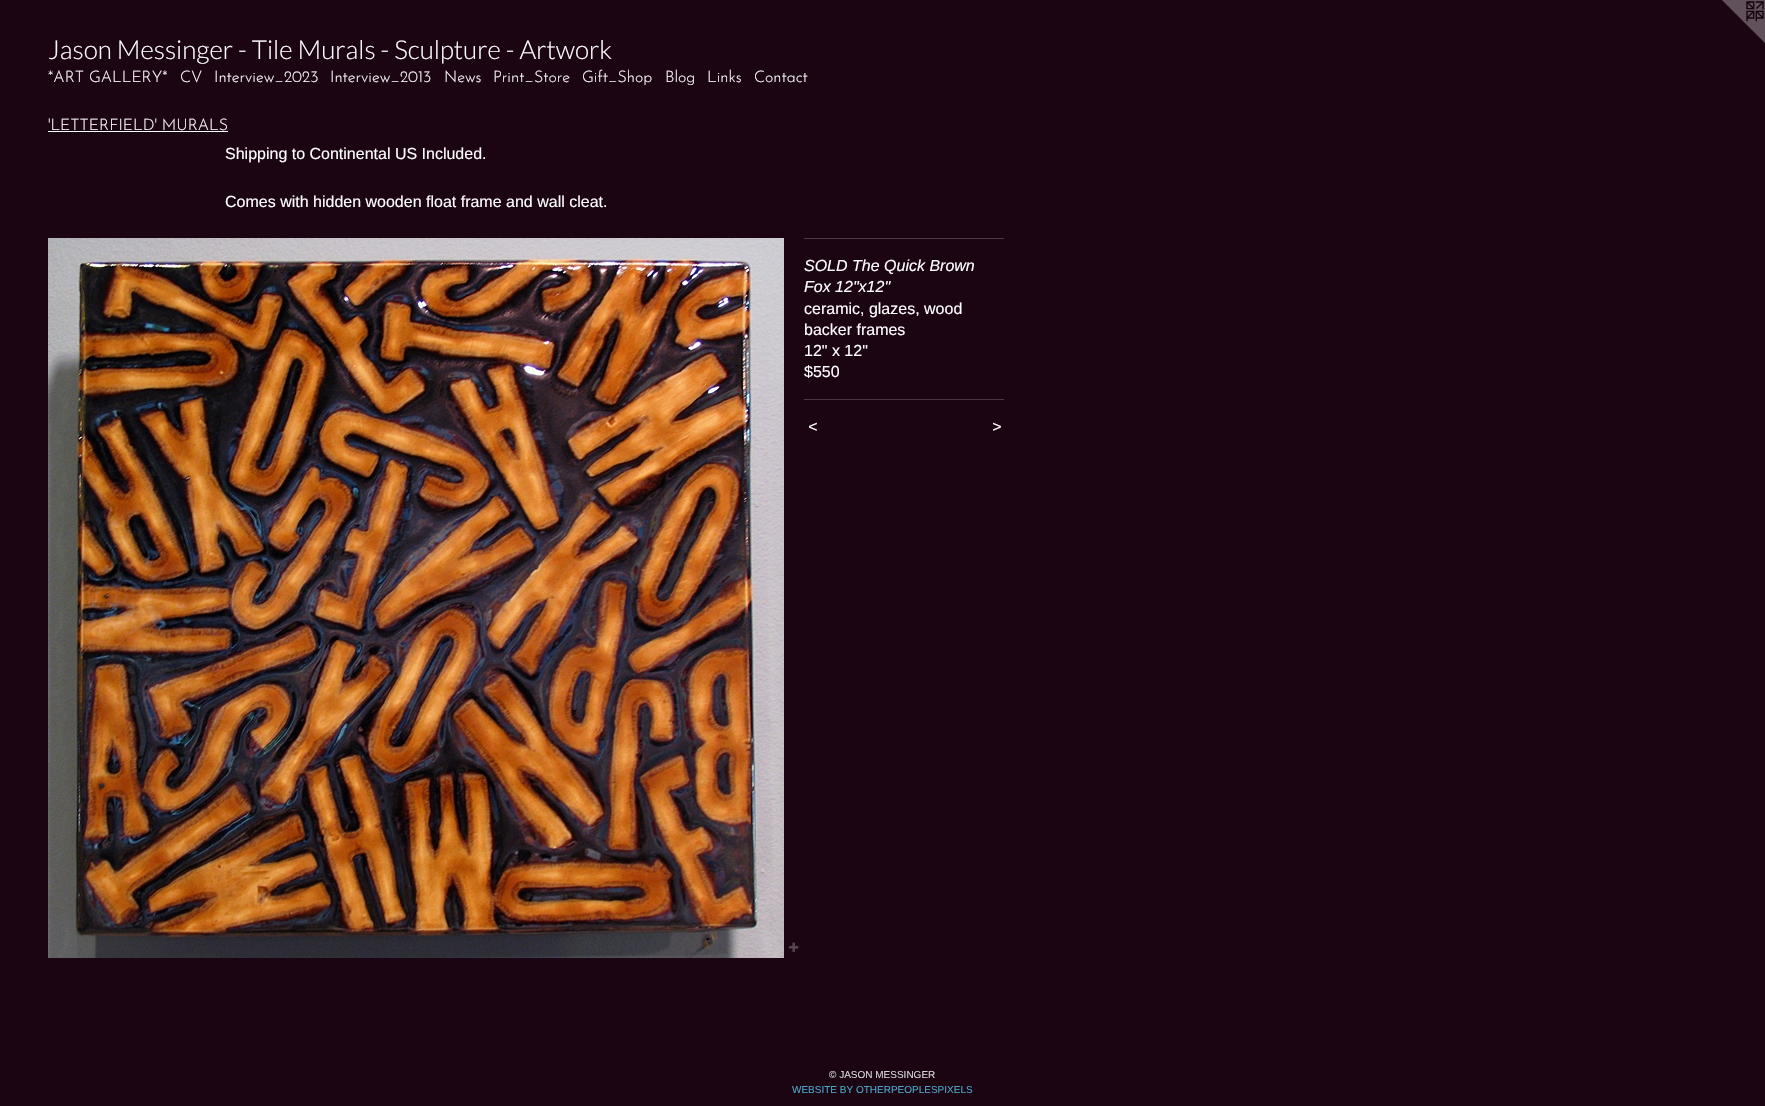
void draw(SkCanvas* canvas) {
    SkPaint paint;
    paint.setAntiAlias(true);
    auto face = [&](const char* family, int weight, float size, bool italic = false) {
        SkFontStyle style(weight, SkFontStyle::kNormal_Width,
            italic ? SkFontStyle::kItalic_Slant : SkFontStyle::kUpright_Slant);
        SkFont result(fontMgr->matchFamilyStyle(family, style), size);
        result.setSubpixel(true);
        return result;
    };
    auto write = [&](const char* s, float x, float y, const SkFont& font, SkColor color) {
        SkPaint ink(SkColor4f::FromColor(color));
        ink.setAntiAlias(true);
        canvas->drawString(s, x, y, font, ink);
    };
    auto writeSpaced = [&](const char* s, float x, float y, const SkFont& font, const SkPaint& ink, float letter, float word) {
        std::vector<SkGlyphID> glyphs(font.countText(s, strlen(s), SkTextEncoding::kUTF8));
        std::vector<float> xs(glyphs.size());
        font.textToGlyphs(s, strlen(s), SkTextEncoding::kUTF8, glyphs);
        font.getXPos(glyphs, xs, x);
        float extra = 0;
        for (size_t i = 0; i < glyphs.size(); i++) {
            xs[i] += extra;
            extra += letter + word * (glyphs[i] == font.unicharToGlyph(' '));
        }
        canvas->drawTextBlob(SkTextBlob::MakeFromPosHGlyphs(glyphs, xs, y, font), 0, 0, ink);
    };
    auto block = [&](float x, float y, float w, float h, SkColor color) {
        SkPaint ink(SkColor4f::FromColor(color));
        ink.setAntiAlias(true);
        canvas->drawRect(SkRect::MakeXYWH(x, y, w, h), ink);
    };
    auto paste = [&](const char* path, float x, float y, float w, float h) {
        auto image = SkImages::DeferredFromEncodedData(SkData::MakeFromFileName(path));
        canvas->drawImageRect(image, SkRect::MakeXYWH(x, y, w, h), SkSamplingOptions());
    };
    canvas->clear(SkColorSetRGB(28, 5, 19));
    paste("pic1.png", 1722, 0, 43, 43);
    auto kFont1 = face("Lato", 300, 26);
    write("Jason Messinger - Tile Murals - Sculpture - Artwork", 48, 59, kFont1, SK_ColorWHITE);
    auto kFont2 = face("Josefin Sans", 100, 16);
    write("*ART GALLERY*", 48, 82, kFont2, SK_ColorWHITE);
    write("CV", 180, 82, kFont2, SK_ColorWHITE);
    write("Interview_2023", 214, 82, kFont2, SK_ColorWHITE);
    write("Interview_2013", 330, 82, kFont2, SK_ColorWHITE);
    write("News", 444, 82, kFont2, SK_ColorWHITE);
    write("Print_Store", 493, 82, kFont2, SK_ColorWHITE);
    write("Gift_Shop", 582, 82, kFont2, SK_ColorWHITE);
    write("Blog", 665, 82, kFont2, SK_ColorWHITE);
    write("Links", 707, 82, kFont2, SK_ColorWHITE);
    write("Contact", 754, 82, kFont2, SK_ColorWHITE);
    write("'LETTERFIELD' MURALS", 48, 130, kFont2, SK_ColorWHITE);
    block(48, 131, 180, 1, SK_ColorWHITE);
    auto kFont3 = face("Liberation Sans", 400, 16);
    write("Shipping to Continental US Included.", 225, 159, kFont3, SK_ColorWHITE);
    write("Comes with hidden wooden float frame and wall cleat.", 225, 207, kFont3, SK_ColorWHITE);
    paste("pic2.png", 48, 238, 736, 720);
    paste("pic3.png", 789, 942, 10, 10);
    block(804, 238, 200, 1, SkColorSetRGB(73, 55, 66));
    auto kFont4 = face("Liberation Sans", 400, 16, true);
    write("SOLD The Quick Brown", 804, 271, kFont4, SK_ColorWHITE);
    write("Fox 12\"x12\"", 804, 292, kFont4, SK_ColorWHITE);
    write("ceramic, glazes, wood", 804, 314, kFont3, SK_ColorWHITE);
    write("backer frames", 804, 335, kFont3, SK_ColorWHITE);
    write("12\" x 12\"", 804, 356, kFont3, SK_ColorWHITE);
    write("$550", 804, 377, kFont3, SK_ColorWHITE);
    block(804, 399, 200, 1, SkColorSetRGB(73, 55, 66));
    paint.setColor(SK_ColorWHITE);
    writeSpaced("<", 808, 432, kFont4, paint, 1, 0);
    writeSpaced(">", 992, 432, kFont4, paint, 1, 0);
    auto kFont5 = face("Liberation Sans", 400, 10);
    write("© JASON MESSINGER", 829, 1078, kFont5, SkColorSetRGB(214, 214, 214));
    write("WEBSITE BY OTHERPEOPLESPIXELS", 792, 1093, kFont5, SkColorSetRGB(76, 164, 200));
}
